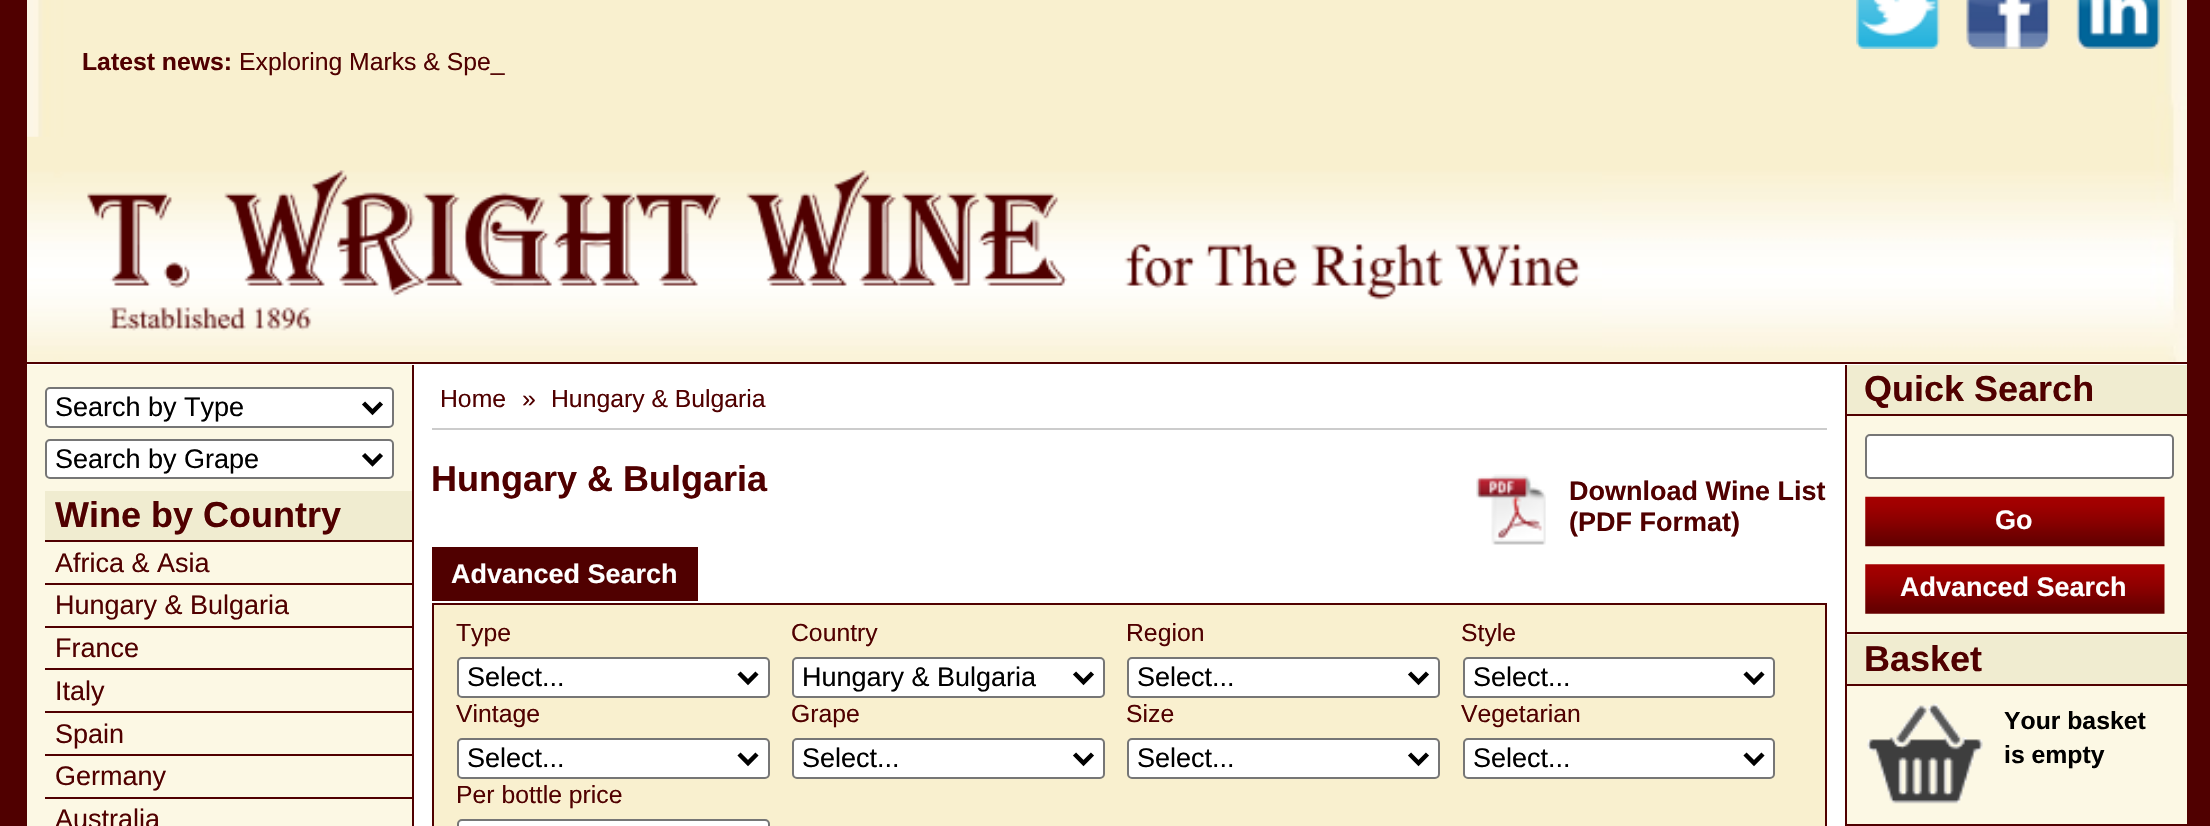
void draw(SkCanvas* canvas) {
    SkPaint paint;
    paint.setAntiAlias(true);
    auto face = [&](const char* family, int weight, float size, bool italic = false) {
        SkFontStyle style(weight, SkFontStyle::kNormal_Width,
            italic ? SkFontStyle::kItalic_Slant : SkFontStyle::kUpright_Slant);
        SkFont result(fontMgr->matchFamilyStyle(family, style), size);
        result.setSubpixel(true);
        return result;
    };
    auto write = [&](const char* s, float x, float y, const SkFont& font, SkColor color) {
        SkPaint ink(SkColor4f::FromColor(color));
        ink.setAntiAlias(true);
        canvas->drawString(s, x, y, font, ink);
    };
    auto block = [&](float x, float y, float w, float h, SkColor color) {
        SkPaint ink(SkColor4f::FromColor(color));
        ink.setAntiAlias(true);
        canvas->drawRect(SkRect::MakeXYWH(x, y, w, h), ink);
    };
    auto paste = [&](const char* path, float x, float y, float w, float h) {
        auto image = SkImages::DeferredFromEncodedData(SkData::MakeFromFileName(path));
        canvas->drawImageRect(image, SkRect::MakeXYWH(x, y, w, h), SkSamplingOptions());
    };
    canvas->clear(SkColorSetRGB(80, 0, 0));
    block(27, 361, 2160, 465, SK_ColorWHITE);
    paste("pic1.png", 27, 0, 2160, 362);
    block(27, 362, 2160, 2, SkColorSetRGB(80, 0, 0));
    paste("pic2.png", 1856, 0, 84, 49);
    paste("pic3.png", 1966, 0, 84, 49);
    paste("pic4.png", 2076, 0, 84, 49);
    auto kFont1 = face("Liberation Sans", 700, 24.75f);
    write("Latest news:", 82, 70, kFont1, SkColorSetRGB(80, 0, 0));
    auto kFont2 = face("Liberation Sans", 400, 24.75f);
    write("Exploring Marks & Spe_", 239, 70, kFont2, SkColorSetRGB(80, 0, 0));
    paste("pic5.png", 27, 136, 1575, 226);
    block(27, 365, 385, 461, SkColorSetRGB(252, 248, 228));
    block(412, 365, 2, 461, SkColorSetRGB(80, 0, 0));
    block(432, 428, 1395, 2, SkColorSetRGB(204, 204, 204));
    write("Home", 440, 407, kFont2, SkColorSetRGB(80, 0, 0));
    write("»", 522, 407, kFont2, SkColorSetRGB(80, 0, 0));
    write("Hungary & Bulgaria", 551, 407, kFont2, SkColorSetRGB(80, 0, 0));
    auto kFont3 = face("Liberation Sans", 700, 36);
    write("Hungary & Bulgaria", 431, 491, kFont3, SkColorSetRGB(80, 0, 0));
    paste("pic6.png", 1476, 474, 70, 71);
    auto kFont4 = face("Liberation Sans", 700, 27);
    write("Download Wine List", 1569, 500, kFont4, SkColorSetRGB(80, 0, 0));
    write("(PDF Format)", 1569, 531, kFont4, SkColorSetRGB(80, 0, 0));
    block(432, 603, 1395, 2, SkColorSetRGB(80, 0, 0));
    block(432, 547, 266, 54, SkColorSetRGB(80, 0, 0));
    write("Advanced Search", 451, 583, kFont4, SK_ColorWHITE);
    block(434, 605, 1391, 221, SkColorSetRGB(249, 240, 207));
    block(1825, 605, 2, 221, SkColorSetRGB(80, 0, 0));
    block(432, 605, 2, 221, SkColorSetRGB(80, 0, 0));
    write("Type", 456, 641, kFont2, SkColorSetRGB(80, 0, 0));
    paint.setColor(SK_ColorWHITE);
    canvas->drawRoundRect(SkRect::MakeXYWH(458, 658, 311, 39), 4, 4, paint);
    paint.setStyle(SkPaint::kStroke_Style);
    paint.setStrokeWidth(2);
    paint.setColor(SkColorSetRGB(118, 118, 118));
    canvas->drawRoundRect(SkRect::MakeXYWH(458, 658, 311, 39), 4, 4, paint);
    paint.setStrokeWidth(4.5f);
    paint.setColor(SK_ColorBLACK);
    canvas->drawPath(SkPathBuilder().moveTo(739, 673).lineTo(748, 682).lineTo(757, 673).detach(), paint);
    auto kFont5 = face("Liberation Sans", 400, 27);
    write("Select...", 467, 686, kFont5, SK_ColorBLACK);
    write("Country", 791, 641, kFont2, SkColorSetRGB(80, 0, 0));
    paint.setStyle(SkPaint::kFill_Style);
    paint.setColor(SK_ColorWHITE);
    canvas->drawRoundRect(SkRect::MakeXYWH(793, 658, 311, 39), 4, 4, paint);
    paint.setStyle(SkPaint::kStroke_Style);
    paint.setStrokeWidth(2);
    paint.setColor(SkColorSetRGB(118, 118, 118));
    canvas->drawRoundRect(SkRect::MakeXYWH(793, 658, 311, 39), 4, 4, paint);
    paint.setStrokeWidth(4.5f);
    paint.setColor(SK_ColorBLACK);
    canvas->drawPath(SkPathBuilder().moveTo(1074.5f, 673).lineTo(1083.5f, 682).lineTo(1092.5f, 673).detach(), paint);
    write("Hungary & Bulgaria", 802, 686, kFont5, SK_ColorBLACK);
    write("Region", 1126, 641, kFont2, SkColorSetRGB(80, 0, 0));
    paint.setStyle(SkPaint::kFill_Style);
    paint.setColor(SK_ColorWHITE);
    canvas->drawRoundRect(SkRect::MakeXYWH(1128, 658, 311, 39), 4, 4, paint);
    paint.setStyle(SkPaint::kStroke_Style);
    paint.setStrokeWidth(2);
    paint.setColor(SkColorSetRGB(118, 118, 118));
    canvas->drawRoundRect(SkRect::MakeXYWH(1128, 658, 311, 39), 4, 4, paint);
    paint.setStrokeWidth(4.5f);
    paint.setColor(SK_ColorBLACK);
    canvas->drawPath(SkPathBuilder().moveTo(1409.5f, 673).lineTo(1418.5f, 682).lineTo(1427.5f, 673).detach(), paint);
    write("Select...", 1137, 686, kFont5, SK_ColorBLACK);
    write("Style", 1461, 641, kFont2, SkColorSetRGB(80, 0, 0));
    paint.setStyle(SkPaint::kFill_Style);
    paint.setColor(SK_ColorWHITE);
    canvas->drawRoundRect(SkRect::MakeXYWH(1464, 658, 310, 39), 4, 4, paint);
    paint.setStyle(SkPaint::kStroke_Style);
    paint.setStrokeWidth(2);
    paint.setColor(SkColorSetRGB(118, 118, 118));
    canvas->drawRoundRect(SkRect::MakeXYWH(1464, 658, 310, 39), 4, 4, paint);
    paint.setStrokeWidth(4.5f);
    paint.setColor(SK_ColorBLACK);
    canvas->drawPath(SkPathBuilder().moveTo(1745, 673).lineTo(1754, 682).lineTo(1763, 673).detach(), paint);
    write("Select...", 1473, 686, kFont5, SK_ColorBLACK);
    write("Vintage", 456, 722, kFont2, SkColorSetRGB(80, 0, 0));
    paint.setStyle(SkPaint::kFill_Style);
    paint.setColor(SK_ColorWHITE);
    canvas->drawRoundRect(SkRect::MakeXYWH(458, 739, 311, 39), 4, 4, paint);
    paint.setStyle(SkPaint::kStroke_Style);
    paint.setStrokeWidth(2);
    paint.setColor(SkColorSetRGB(118, 118, 118));
    canvas->drawRoundRect(SkRect::MakeXYWH(458, 739, 311, 39), 4, 4, paint);
    paint.setStrokeWidth(4.5f);
    paint.setColor(SK_ColorBLACK);
    canvas->drawPath(SkPathBuilder().moveTo(739, 754).lineTo(748, 763).lineTo(757, 754).detach(), paint);
    write("Select...", 467, 767, kFont5, SK_ColorBLACK);
    write("Grape", 791, 722, kFont2, SkColorSetRGB(80, 0, 0));
    paint.setStyle(SkPaint::kFill_Style);
    paint.setColor(SK_ColorWHITE);
    canvas->drawRoundRect(SkRect::MakeXYWH(793, 739, 311, 39), 4, 4, paint);
    paint.setStyle(SkPaint::kStroke_Style);
    paint.setStrokeWidth(2);
    paint.setColor(SkColorSetRGB(118, 118, 118));
    canvas->drawRoundRect(SkRect::MakeXYWH(793, 739, 311, 39), 4, 4, paint);
    paint.setStrokeWidth(4.5f);
    paint.setColor(SK_ColorBLACK);
    canvas->drawPath(SkPathBuilder().moveTo(1074.5f, 754).lineTo(1083.5f, 763).lineTo(1092.5f, 754).detach(), paint);
    write("Select...", 802, 767, kFont5, SK_ColorBLACK);
    write("Size", 1126, 722, kFont2, SkColorSetRGB(80, 0, 0));
    paint.setStyle(SkPaint::kFill_Style);
    paint.setColor(SK_ColorWHITE);
    canvas->drawRoundRect(SkRect::MakeXYWH(1128, 739, 311, 39), 4, 4, paint);
    paint.setStyle(SkPaint::kStroke_Style);
    paint.setStrokeWidth(2);
    paint.setColor(SkColorSetRGB(118, 118, 118));
    canvas->drawRoundRect(SkRect::MakeXYWH(1128, 739, 311, 39), 4, 4, paint);
    paint.setStrokeWidth(4.5f);
    paint.setColor(SK_ColorBLACK);
    canvas->drawPath(SkPathBuilder().moveTo(1409.5f, 754).lineTo(1418.5f, 763).lineTo(1427.5f, 754).detach(), paint);
    write("Select...", 1137, 767, kFont5, SK_ColorBLACK);
    write("Vegetarian", 1461, 722, kFont2, SkColorSetRGB(80, 0, 0));
    paint.setStyle(SkPaint::kFill_Style);
    paint.setColor(SK_ColorWHITE);
    canvas->drawRoundRect(SkRect::MakeXYWH(1464, 739, 310, 39), 4, 4, paint);
    paint.setStyle(SkPaint::kStroke_Style);
    paint.setStrokeWidth(2);
    paint.setColor(SkColorSetRGB(118, 118, 118));
    canvas->drawRoundRect(SkRect::MakeXYWH(1464, 739, 310, 39), 4, 4, paint);
    paint.setStrokeWidth(4.5f);
    paint.setColor(SK_ColorBLACK);
    canvas->drawPath(SkPathBuilder().moveTo(1745, 754).lineTo(1754, 763).lineTo(1763, 754).detach(), paint);
    write("Select...", 1473, 767, kFont5, SK_ColorBLACK);
    write("Per bottle price", 456, 803, kFont2, SkColorSetRGB(80, 0, 0));
    paint.setStyle(SkPaint::kFill_Style);
    paint.setColor(SK_ColorWHITE);
    canvas->drawRoundRect(SkRect::MakeXYWH(458, 820, 311, 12), 4, 4, paint);
    paint.setStyle(SkPaint::kStroke_Style);
    paint.setStrokeWidth(2);
    paint.setColor(SkColorSetRGB(118, 118, 118));
    canvas->drawRoundRect(SkRect::MakeXYWH(458, 820, 311, 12), 4, 4, paint);
    block(1845, 365, 2, 461, SkColorSetRGB(80, 0, 0));
    block(1847, 416, 340, 408, SkColorSetRGB(252, 248, 228));
    block(1847, 365, 340, 49, SkColorSetRGB(240, 236, 208));
    block(1847, 414, 340, 2, SkColorSetRGB(80, 0, 0));
    write("Quick Search", 1864, 401, kFont3, SkColorSetRGB(80, 0, 0));
    block(1847, 632, 340, 2, SkColorSetRGB(80, 0, 0));
    paint.setStyle(SkPaint::kFill_Style);
    paint.setColor(SK_ColorWHITE);
    canvas->drawRoundRect(SkRect::MakeXYWH(1866, 435, 307, 43), 4, 4, paint);
    paint.setStyle(SkPaint::kStroke_Style);
    paint.setColor(SkColorSetRGB(118, 118, 118));
    canvas->drawRoundRect(SkRect::MakeXYWH(1866, 435, 307, 43), 4, 4, paint);
    paste("pic7.png", 1865, 496, 300, 51);
    write("Go", 1995, 529, kFont4, SK_ColorWHITE);
    paste("pic8.png", 1865, 564, 300, 50);
    write("Advanced Search", 1900, 596, kFont4, SK_ColorWHITE);
    block(1847, 635, 340, 49, SkColorSetRGB(240, 236, 208));
    block(1847, 684, 340, 2, SkColorSetRGB(80, 0, 0));
    write("Basket", 1864, 671, kFont3, SkColorSetRGB(80, 0, 0));
    block(1847, 824, 340, 2, SkColorSetRGB(80, 0, 0));
    paste("pic9.png", 1867, 703, 116, 101);
    write("Your basket", 2004, 729, kFont1, SK_ColorBLACK);
    write("is empty", 2004, 763, kFont1, SK_ColorBLACK);
    paint.setStyle(SkPaint::kFill_Style);
    paint.setColor(SK_ColorWHITE);
    canvas->drawRoundRect(SkRect::MakeXYWH(46, 388, 347, 39), 4, 4, paint);
    paint.setStyle(SkPaint::kStroke_Style);
    paint.setColor(SkColorSetRGB(118, 118, 118));
    canvas->drawRoundRect(SkRect::MakeXYWH(46, 388, 347, 39), 4, 4, paint);
    paint.setStrokeWidth(4.5f);
    paint.setColor(SK_ColorBLACK);
    canvas->drawPath(SkPathBuilder().moveTo(363.5f, 403).lineTo(372.5f, 412).lineTo(381.5f, 403).detach(), paint);
    write("Search by Type", 55, 416, kFont5, SK_ColorBLACK);
    paint.setStyle(SkPaint::kFill_Style);
    paint.setColor(SK_ColorWHITE);
    canvas->drawRoundRect(SkRect::MakeXYWH(46, 440, 347, 38), 4, 4, paint);
    paint.setStyle(SkPaint::kStroke_Style);
    paint.setStrokeWidth(2);
    paint.setColor(SkColorSetRGB(118, 118, 118));
    canvas->drawRoundRect(SkRect::MakeXYWH(46, 440, 347, 38), 4, 4, paint);
    paint.setStrokeWidth(4.5f);
    paint.setColor(SK_ColorBLACK);
    canvas->drawPath(SkPathBuilder().moveTo(363.5f, 454.5f).lineTo(372.5f, 463.5f).lineTo(381.5f, 454.5f).detach(), paint);
    write("Search by Grape", 55, 468, kFont5, SK_ColorBLACK);
    block(45, 491, 367, 49, SkColorSetRGB(240, 236, 208));
    block(45, 540, 367, 2, SkColorSetRGB(80, 0, 0));
    write("Wine by Country", 55, 527, kFont3, SkColorSetRGB(80, 0, 0));
    block(45, 583, 367, 2, SkColorSetRGB(80, 0, 0));
    write("Africa & Asia", 55, 572, kFont5, SkColorSetRGB(80, 0, 0));
    block(45, 626, 367, 2, SkColorSetRGB(80, 0, 0));
    write("Hungary & Bulgaria", 55, 614, kFont5, SkColorSetRGB(80, 0, 0));
    block(45, 668, 367, 2, SkColorSetRGB(80, 0, 0));
    write("France", 55, 657, kFont5, SkColorSetRGB(80, 0, 0));
    block(45, 711, 367, 2, SkColorSetRGB(80, 0, 0));
    write("Italy", 55, 700, kFont5, SkColorSetRGB(80, 0, 0));
    block(45, 754, 367, 2, SkColorSetRGB(80, 0, 0));
    write("Spain", 55, 743, kFont5, SkColorSetRGB(80, 0, 0));
    block(45, 797, 367, 2, SkColorSetRGB(80, 0, 0));
    write("Germany", 55, 785, kFont5, SkColorSetRGB(80, 0, 0));
    write("Australia", 55, 828, kFont5, SkColorSetRGB(80, 0, 0));
}
